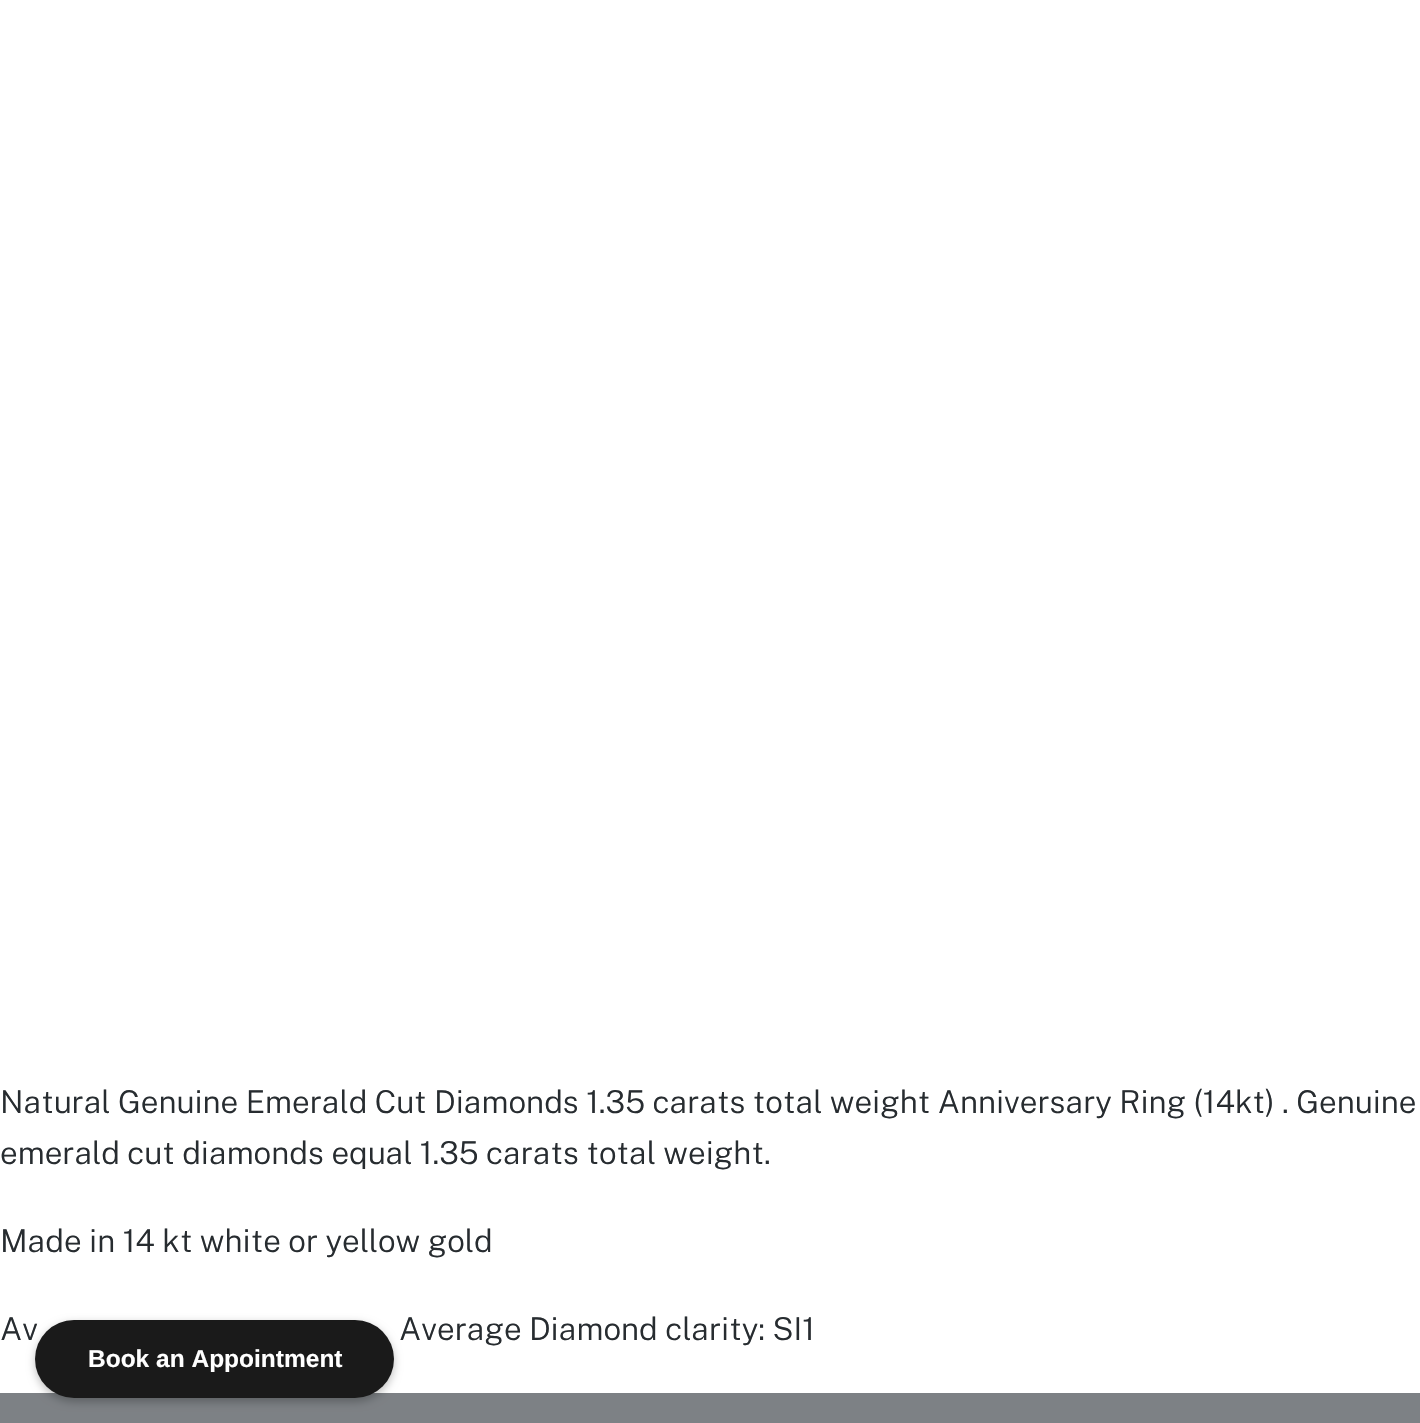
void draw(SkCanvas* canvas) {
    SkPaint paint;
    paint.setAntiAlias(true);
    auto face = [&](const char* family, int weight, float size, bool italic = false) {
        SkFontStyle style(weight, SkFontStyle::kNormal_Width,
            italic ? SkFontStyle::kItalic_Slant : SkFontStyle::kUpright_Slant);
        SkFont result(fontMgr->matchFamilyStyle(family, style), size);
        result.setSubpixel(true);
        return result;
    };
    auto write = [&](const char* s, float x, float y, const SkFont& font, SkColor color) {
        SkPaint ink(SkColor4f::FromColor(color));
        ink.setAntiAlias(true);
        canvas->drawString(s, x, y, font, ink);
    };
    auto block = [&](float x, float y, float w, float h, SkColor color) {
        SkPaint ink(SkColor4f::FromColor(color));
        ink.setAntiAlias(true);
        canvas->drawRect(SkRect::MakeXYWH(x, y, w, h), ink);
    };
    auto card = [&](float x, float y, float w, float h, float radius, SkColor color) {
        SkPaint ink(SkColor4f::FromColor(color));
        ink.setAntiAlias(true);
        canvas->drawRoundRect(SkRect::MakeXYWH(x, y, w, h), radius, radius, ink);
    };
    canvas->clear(SK_ColorWHITE);
    auto kFont1 = face("Public Sans", 300, 31.5f);
    write("Natural Genuine Emerald Cut Diamonds 1.35 carats total weight Anniversary Ring (14kt) . Genuine", 0, 1113, kFont1, SkColorSetRGB(39, 44, 48));
    write("emerald cut diamonds equal 1.35 carats total weight.", 0, 1164, kFont1, SkColorSetRGB(39, 44, 48));
    write("Made in 14 kt white or yellow gold", 0, 1252, kFont1, SkColorSetRGB(39, 44, 48));
    write("Av", 0, 1340, kFont1, SkColorSetRGB(39, 44, 48));
    write("Average Diamond clarity: SI1", 399, 1340, kFont1, SkColorSetRGB(39, 44, 48));
    block(0, 1393, 1420, 30, SkColorSetRGB(125, 129, 133));
    paint.setColor(SkColorSetARGB(64, 0, 0, 0));
    paint.setMaskFilter(SkMaskFilter::MakeBlur(kNormal_SkBlurStyle, 4.5f));
    canvas->drawRoundRect(SkRect::MakeXYWH(35, 1323, 359, 79), 39.5f, 39.5f, paint);
    paint.setMaskFilter(nullptr);
    card(35, 1320, 359, 78, 39, SkColorSetRGB(26, 26, 26));
    auto kFont2 = face("Liberation Sans", 700, 24.5f);
    write("Book an Appointment", 88, 1367, kFont2, SK_ColorWHITE);
}
